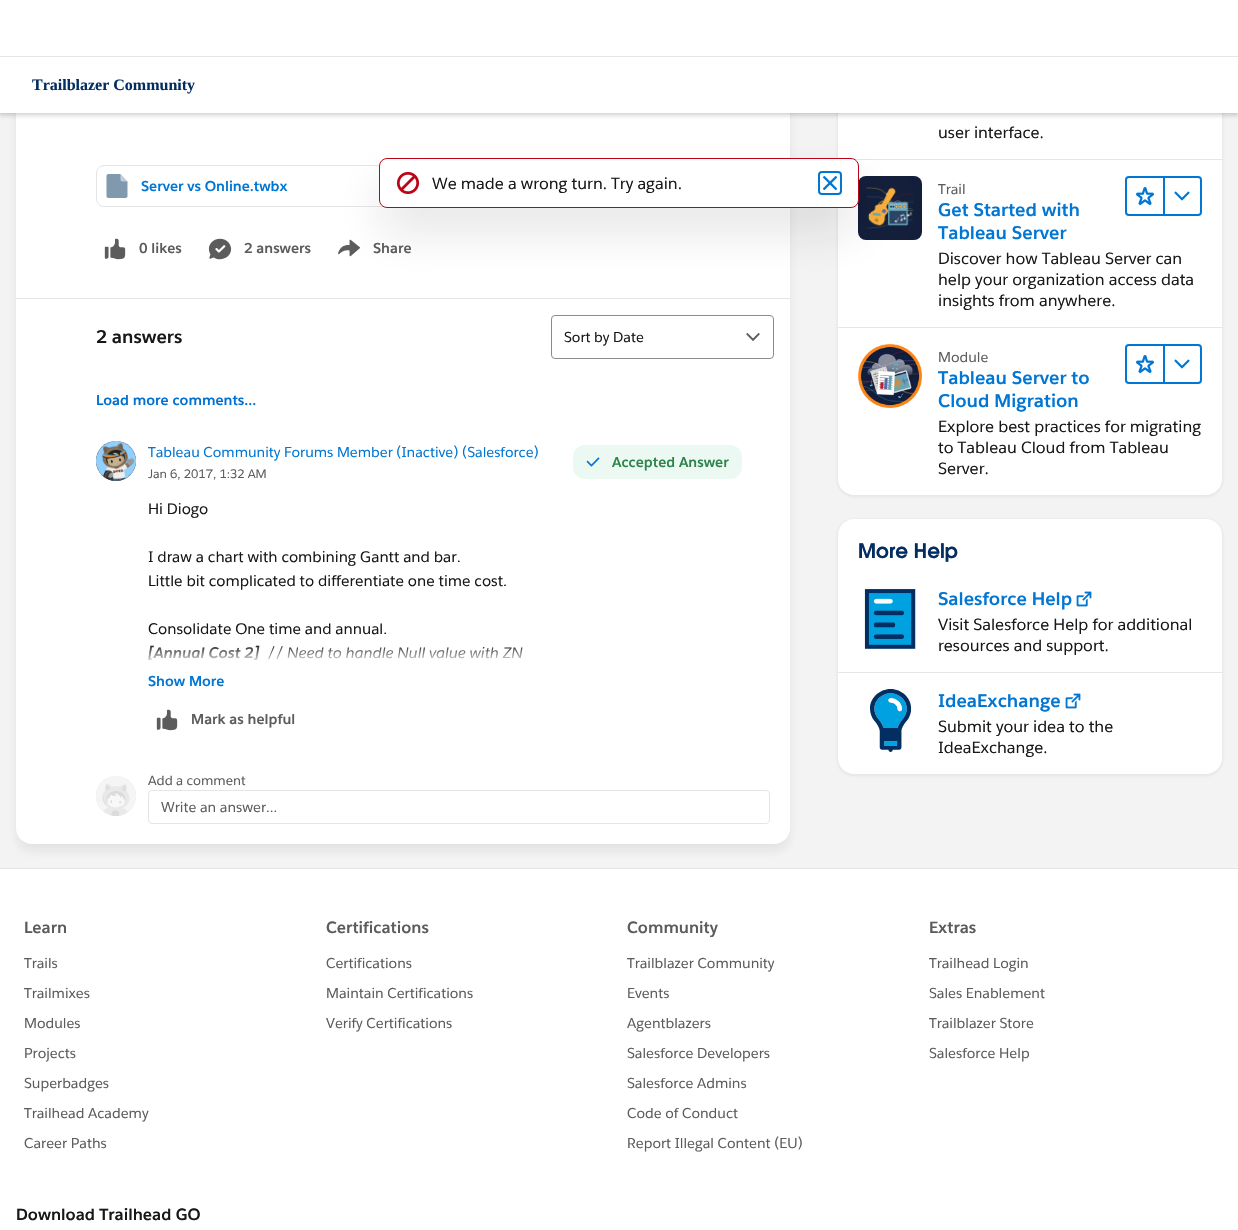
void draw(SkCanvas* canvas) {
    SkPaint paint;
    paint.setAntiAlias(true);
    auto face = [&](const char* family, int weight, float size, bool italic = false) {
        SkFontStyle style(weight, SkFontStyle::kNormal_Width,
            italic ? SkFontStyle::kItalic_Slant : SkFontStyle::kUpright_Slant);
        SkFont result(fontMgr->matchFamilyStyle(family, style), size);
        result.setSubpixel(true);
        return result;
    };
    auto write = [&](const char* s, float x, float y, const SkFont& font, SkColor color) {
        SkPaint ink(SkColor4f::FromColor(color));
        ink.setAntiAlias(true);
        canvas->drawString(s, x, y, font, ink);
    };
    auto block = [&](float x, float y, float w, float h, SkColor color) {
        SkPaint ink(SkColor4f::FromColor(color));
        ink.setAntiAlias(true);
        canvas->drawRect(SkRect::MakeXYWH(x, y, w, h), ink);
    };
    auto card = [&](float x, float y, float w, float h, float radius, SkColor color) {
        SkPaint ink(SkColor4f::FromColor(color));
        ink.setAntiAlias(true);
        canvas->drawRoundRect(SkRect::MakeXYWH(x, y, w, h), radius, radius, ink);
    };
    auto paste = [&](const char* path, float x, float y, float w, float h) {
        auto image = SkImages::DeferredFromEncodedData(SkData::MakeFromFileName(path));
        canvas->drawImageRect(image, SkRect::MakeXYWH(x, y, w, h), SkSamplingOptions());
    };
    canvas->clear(SK_ColorWHITE);
    block(0, 113, 1238, 755, SkColorSetRGB(243, 243, 243));
    block(0, 868, 1238, 1, SkColorSetRGB(229, 229, 229));
    paint.setColor(SkColorSetARGB(23, 24, 24, 24));
    paint.setMaskFilter(SkMaskFilter::MakeBlur(kNormal_SkBlurStyle, 6));
    canvas->drawRoundRect(SkRect::MakeXYWH(18, -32, 770, 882), 14, 14, paint);
    paint.setMaskFilter(nullptr);
    card(16, -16, 774, 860, 16, SK_ColorWHITE);
    paint.setColor(SkColorSetARGB(15, 24, 24, 24));
    paint.setMaskFilter(SkMaskFilter::MakeBlur(kNormal_SkBlurStyle, 1.5f));
    canvas->drawRoundRect(SkRect::MakeXYWH(837, -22, 386, 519), 17, 17, paint);
    paint.setMaskFilter(nullptr);
    card(838, -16, 384, 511, 16, SK_ColorWHITE);
    paint.setColor(SkColorSetARGB(41, 24, 24, 24));
    paint.setMaskFilter(SkMaskFilter::MakeBlur(kNormal_SkBlurStyle, 2));
    canvas->drawRect(SkRect::MakeXYWH(-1, 57, 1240, 59), paint);
    paint.setMaskFilter(nullptr);
    paint.setColor(SkColorSetARGB(20, 24, 24, 24));
    paint.setMaskFilter(SkMaskFilter::MakeBlur(kNormal_SkBlurStyle, 1));
    canvas->drawRect(SkRect::MakeXYWH(0, 56, 1238, 57), paint);
    paint.setMaskFilter(nullptr);
    block(0, 0, 1238, 56, SK_ColorWHITE);
    paint.setStyle(SkPaint::kStroke_Style);
    paint.setStrokeWidth(1);
    paint.setColor(SkColorSetRGB(229, 229, 229));
    canvas->drawRoundRect(SkRect::MakeXYWH(96.5f, 165.5f, 330, 41), 7.5f, 7.5f, paint);
    paste("pic4.png", 338, 239, 22, 18);
    block(16, 298, 774, 1, SkColorSetRGB(229, 229, 229));
    block(854, 159, 368, 1, SkColorSetRGB(229, 229, 229));
    card(858, 176, 64, 64, 8, SkColorSetRGB(18, 30, 58));
    paste("pic9.png", 866, 187, 48, 42);
    paint.setStyle(SkPaint::kFill_Style);
    paint.setColor(SkColorSetARGB(31, 24, 24, 24));
    paint.setMaskFilter(SkMaskFilter::MakeBlur(kNormal_SkBlurStyle, 24));
    canvas->drawRoundRect(SkRect::MakeXYWH(381, 184, 476, 46), 6, 6, paint);
    paint.setMaskFilter(nullptr);
    block(0, 57, 1238, 56, SK_ColorWHITE);
    block(0, 56, 1238, 1, SkColorSetRGB(229, 229, 229));
    auto kFont1 = face("Liberation Serif", 700, 16);
    write("Trailblazer Community", 32, 90, kFont1, SkColorSetRGB(3, 45, 96));
    paste("pic1.png", 106, 174, 22, 24);
    auto kFont2 = face("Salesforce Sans", 700, 14);
    write("Server vs Online.twbx", 141, 191, kFont2, SkColorSetRGB(1, 118, 211));
    paste("pic2.png", 104, 238, 22, 22);
    write("0 likes", 139, 253, kFont2, SkColorSetRGB(92, 92, 92));
    paste("pic3.png", 208, 238, 24, 22);
    write("2 answers", 244, 253, kFont2, SkColorSetRGB(92, 92, 92));
    write("Share", 373, 253, kFont2, SkColorSetRGB(92, 92, 92));
    auto kFont3 = face("Salesforce Sans", 700, 18);
    write("2 answers", 96, 343, kFont3, SkColorSetRGB(24, 24, 24));
    paint.setStyle(SkPaint::kStroke_Style);
    paint.setColor(SkColorSetRGB(140, 140, 140));
    canvas->drawRoundRect(SkRect::MakeXYWH(551.5f, 315.5f, 222, 43), 3.5f, 3.5f, paint);
    auto kFont4 = face("Salesforce Sans", 400, 14);
    write("Sort by Date", 564, 342, kFont4, SkColorSetRGB(24, 24, 24));
    paste("pic5.png", 746, 333, 14, 8);
    write("Load more comments...", 96, 405, kFont2, SkColorSetRGB(0, 112, 210));
    paint.setStyle(SkPaint::kFill_Style);
    paint.setColor(SkColorSetRGB(229, 229, 229));
    canvas->drawCircle(116, 461, 20, paint);
    paste("pic6.png", 96, 441, 40, 40);
    write("Tableau Community Forums Member (Inactive) (Salesforce)", 148, 457, kFont4, SkColorSetRGB(1, 118, 211));
    card(573, 445, 169, 34, 12, SkColorSetRGB(236, 249, 243));
    paste("pic7.png", 586, 457, 14, 10);
    write("Accepted Answer", 612, 467, kFont2, SkColorSetRGB(46, 132, 74));
    auto kFont5 = face("Salesforce Sans", 400, 12);
    write("Jan 6, 2017, 1:32 AM", 148, 478, kFont5, SkColorSetRGB(92, 92, 92));
    auto kFont6 = face("Salesforce Sans", 400, 15);
    write("Hi Diogo", 148, 514, kFont6, SkColorSetRGB(24, 24, 24));
    write("I draw a chart with combining Gantt and bar.", 148, 562, kFont6, SkColorSetRGB(24, 24, 24));
    write("Little bit complicated to differentiate one time cost.", 148, 586, kFont6, SkColorSetRGB(24, 24, 24));
    write("Consolidate One time and annual.", 148, 634, kFont6, SkColorSetRGB(24, 24, 24));
    auto kFont7 = face("Salesforce Sans", 700, 15, true);
    write("[Annual Cost 2]", 148, 658, kFont7, SkColorSetRGB(24, 24, 24));
    auto kFont8 = face("Salesforce Sans", 400, 15, true);
    write("// Need to handle Null value with ZN", 267, 658, kFont8, SkColorSetRGB(24, 24, 24));
    {
        const SkColor colors[] = {SkColorSetARGB(0, 255, 255, 255), SK_ColorWHITE};
        const float stops[] = {0.6f, 1};
        const SkPoint ends[] = {{459, 614}, {459, 664}};
        paint.setShader(SkGradientShader::MakeLinear(ends, colors, stops, 2, SkTileMode::kClamp));
        paint.setAlpha(255);
    }
    canvas->drawRect(SkRect::MakeXYWH(148, 645, 375, 15), paint);
    write("Show More", 148, 686, kFont2, SkColorSetRGB(1, 118, 211));
    paste("pic2.png", 156, 709, 22, 22);
    write("Mark as helpful", 191, 724, kFont2, SkColorSetRGB(92, 92, 92));
    paint.setShader(nullptr);
    paint.setColor(SkColorSetRGB(229, 229, 229));
    canvas->drawCircle(116, 796, 20, paint);
    paste("pic8.png", 96, 776, 40, 40);
    auto kFont9 = face("Salesforce Sans", 400, 13);
    write("Add a comment", 148, 785, kFont9, SkColorSetRGB(92, 92, 92));
    paint.setStyle(SkPaint::kStroke_Style);
    canvas->drawRoundRect(SkRect::MakeXYWH(148.5f, 790.5f, 621, 33), 3.5f, 3.5f, paint);
    write("Write an answer...", 161, 812, kFont4, SkColorSetRGB(92, 92, 92));
    auto kFont10 = face("Salesforce Sans", 400, 16);
    write("user interface.", 938, 138, kFont10, SkColorSetRGB(24, 24, 24));
    write("Trail", 938, 194, kFont4, SkColorSetRGB(92, 92, 92));
    paint.setStrokeWidth(2);
    paint.setColor(SkColorSetRGB(1, 118, 211));
    canvas->drawRoundRect(SkRect::MakeXYWH(1126, 177, 75, 38), 3, 3, paint);
    paste("pic10.png", 1136, 187, 18, 18);
    block(1163, 178, 2, 36, SkColorSetRGB(1, 118, 211));
    paste("pic11.png", 1174, 191, 16, 10);
    write("Get Started with", 938, 216, kFont3, SkColorSetRGB(1, 118, 211));
    write("Tableau Server", 938, 239, kFont3, SkColorSetRGB(1, 118, 211));
    write("Discover how Tableau Server can", 938, 264, kFont10, SkColorSetRGB(24, 24, 24));
    write("help your organization access data", 938, 285, kFont10, SkColorSetRGB(24, 24, 24));
    write("insights from anywhere.", 938, 306, kFont10, SkColorSetRGB(24, 24, 24));
    block(838, 327, 384, 1, SkColorSetRGB(229, 229, 229));
    paste("pic12.png", 858, 344, 64, 64);
    write("Module", 938, 362, kFont4, SkColorSetRGB(92, 92, 92));
    canvas->drawRoundRect(SkRect::MakeXYWH(1126, 345, 75, 38), 3, 3, paint);
    paste("pic10.png", 1136, 355, 18, 18);
    block(1163, 346, 2, 36, SkColorSetRGB(1, 118, 211));
    paste("pic11.png", 1174, 359, 16, 10);
    write("Tableau Server to", 938, 384, kFont3, SkColorSetRGB(1, 118, 211));
    write("Cloud Migration", 938, 407, kFont3, SkColorSetRGB(1, 118, 211));
    write("Explore best practices for migrating", 938, 432, kFont10, SkColorSetRGB(24, 24, 24));
    write("to Tableau Cloud from Tableau", 938, 453, kFont10, SkColorSetRGB(24, 24, 24));
    write("Server.", 938, 474, kFont10, SkColorSetRGB(24, 24, 24));
    paint.setStyle(SkPaint::kFill_Style);
    paint.setColor(SkColorSetARGB(15, 24, 24, 24));
    paint.setMaskFilter(SkMaskFilter::MakeBlur(kNormal_SkBlurStyle, 1.5f));
    canvas->drawRoundRect(SkRect::MakeXYWH(837, 519, 386, 257), 17, 17, paint);
    paint.setMaskFilter(nullptr);
    card(838, 519, 384, 255, 16, SK_ColorWHITE);
    auto kFont11 = face("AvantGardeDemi", 600, 20);
    write("More Help", 858, 558, kFont11, SkColorSetRGB(3, 45, 96));
    paste("pic13.png", 864, 589, 52, 60);
    write("Salesforce Help", 938, 605, kFont3, SkColorSetRGB(1, 118, 211));
    paste("pic14.png", 1076, 591, 16, 16);
    write("Visit Salesforce Help for additional", 938, 630, kFont10, SkColorSetRGB(24, 24, 24));
    write("resources and support.", 938, 651, kFont10, SkColorSetRGB(24, 24, 24));
    block(838, 672, 384, 1, SkColorSetRGB(229, 229, 229));
    paste("pic15.png", 870, 689, 42, 63);
    write("IdeaExchange", 938, 707, kFont3, SkColorSetRGB(1, 118, 211));
    paste("pic14.png", 1065, 693, 16, 16);
    write("Submit your idea to the", 938, 732, kFont10, SkColorSetRGB(24, 24, 24));
    write("IdeaExchange.", 938, 753, kFont10, SkColorSetRGB(24, 24, 24));
    paint.setColor(SK_ColorWHITE);
    canvas->drawRoundRect(SkRect::MakeXYWH(379.5f, 158.5f, 479, 49), 7.5f, 7.5f, paint);
    paint.setStyle(SkPaint::kStroke_Style);
    paint.setStrokeWidth(1);
    paint.setColor(SkColorSetRGB(186, 5, 23));
    canvas->drawRoundRect(SkRect::MakeXYWH(379.5f, 158.5f, 479, 49), 7.5f, 7.5f, paint);
    paste("pic16.png", 396, 171, 24, 24);
    write("We made a wrong turn. Try again.", 432, 189, kFont10, SkColorSetRGB(24, 24, 24));
    paint.setStrokeWidth(2);
    paint.setColor(SkColorSetRGB(1, 118, 211));
    canvas->drawRoundRect(SkRect::MakeXYWH(819, 172, 22, 22), 3, 3, paint);
    paste("pic17.png", 822, 176, 15, 15);
    auto kFont12 = face("Salesforce Sans", 700, 16);
    write("Learn", 24, 933, kFont12, SkColorSetRGB(92, 92, 92));
    write("Trails", 24, 968, kFont4, SkColorSetRGB(92, 92, 92));
    write("Trailmixes", 24, 998, kFont4, SkColorSetRGB(92, 92, 92));
    write("Modules", 24, 1028, kFont4, SkColorSetRGB(92, 92, 92));
    write("Projects", 24, 1058, kFont4, SkColorSetRGB(92, 92, 92));
    write("Superbadges", 24, 1088, kFont4, SkColorSetRGB(92, 92, 92));
    write("Trailhead Academy", 24, 1118, kFont4, SkColorSetRGB(92, 92, 92));
    write("Career Paths", 24, 1148, kFont4, SkColorSetRGB(92, 92, 92));
    write("Certifications", 326, 933, kFont12, SkColorSetRGB(92, 92, 92));
    write("Certifications", 326, 968, kFont4, SkColorSetRGB(92, 92, 92));
    write("Maintain Certifications", 326, 998, kFont4, SkColorSetRGB(92, 92, 92));
    write("Verify Certifications", 326, 1028, kFont4, SkColorSetRGB(92, 92, 92));
    write("Community", 627, 933, kFont12, SkColorSetRGB(92, 92, 92));
    write("Trailblazer Community", 627, 968, kFont4, SkColorSetRGB(92, 92, 92));
    write("Events", 627, 998, kFont4, SkColorSetRGB(92, 92, 92));
    write("Agentblazers", 627, 1028, kFont4, SkColorSetRGB(92, 92, 92));
    write("Salesforce Developers", 627, 1058, kFont4, SkColorSetRGB(92, 92, 92));
    write("Salesforce Admins", 627, 1088, kFont4, SkColorSetRGB(92, 92, 92));
    write("Code of Conduct", 627, 1118, kFont4, SkColorSetRGB(92, 92, 92));
    write("Report Illegal Content (EU)", 627, 1148, kFont4, SkColorSetRGB(92, 92, 92));
    write("Extras", 929, 933, kFont12, SkColorSetRGB(92, 92, 92));
    write("Trailhead Login", 929, 968, kFont4, SkColorSetRGB(92, 92, 92));
    write("Sales Enablement", 929, 998, kFont4, SkColorSetRGB(92, 92, 92));
    write("Trailblazer Store", 929, 1028, kFont4, SkColorSetRGB(92, 92, 92));
    write("Salesforce Help", 929, 1058, kFont4, SkColorSetRGB(92, 92, 92));
    write("Download Trailhead GO", 16, 1220, kFont12, SkColorSetRGB(24, 24, 24));
}
